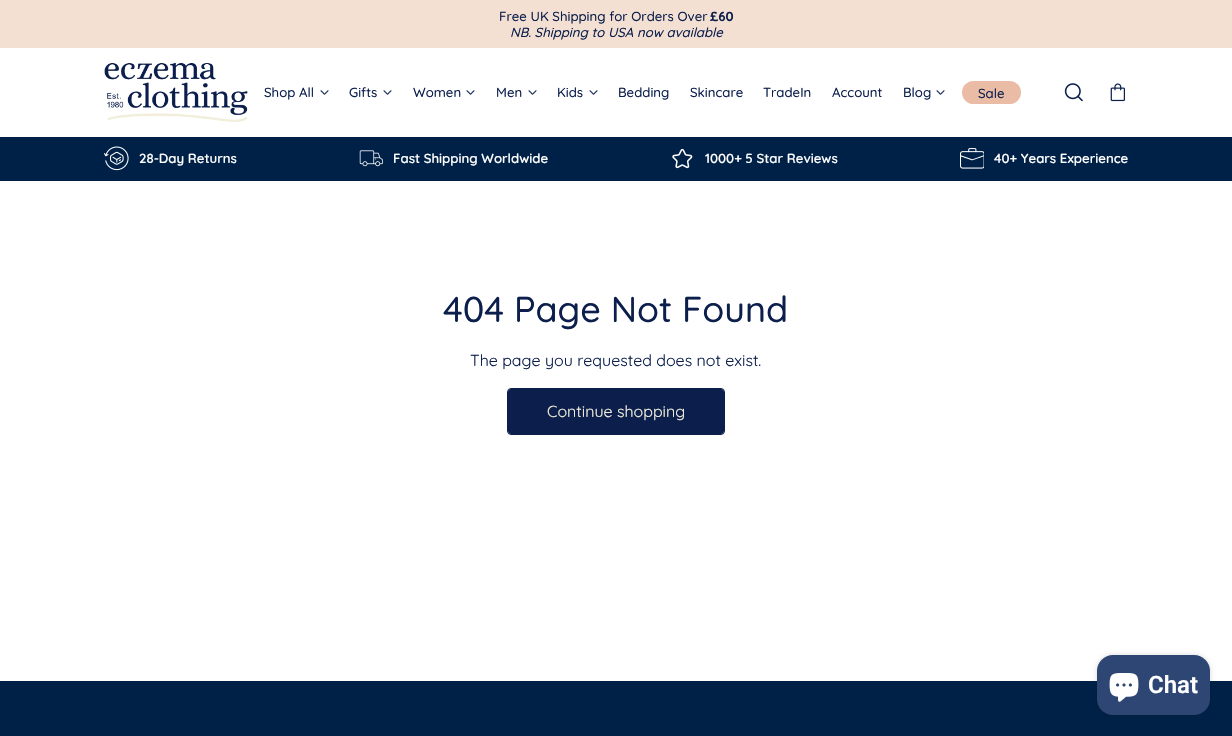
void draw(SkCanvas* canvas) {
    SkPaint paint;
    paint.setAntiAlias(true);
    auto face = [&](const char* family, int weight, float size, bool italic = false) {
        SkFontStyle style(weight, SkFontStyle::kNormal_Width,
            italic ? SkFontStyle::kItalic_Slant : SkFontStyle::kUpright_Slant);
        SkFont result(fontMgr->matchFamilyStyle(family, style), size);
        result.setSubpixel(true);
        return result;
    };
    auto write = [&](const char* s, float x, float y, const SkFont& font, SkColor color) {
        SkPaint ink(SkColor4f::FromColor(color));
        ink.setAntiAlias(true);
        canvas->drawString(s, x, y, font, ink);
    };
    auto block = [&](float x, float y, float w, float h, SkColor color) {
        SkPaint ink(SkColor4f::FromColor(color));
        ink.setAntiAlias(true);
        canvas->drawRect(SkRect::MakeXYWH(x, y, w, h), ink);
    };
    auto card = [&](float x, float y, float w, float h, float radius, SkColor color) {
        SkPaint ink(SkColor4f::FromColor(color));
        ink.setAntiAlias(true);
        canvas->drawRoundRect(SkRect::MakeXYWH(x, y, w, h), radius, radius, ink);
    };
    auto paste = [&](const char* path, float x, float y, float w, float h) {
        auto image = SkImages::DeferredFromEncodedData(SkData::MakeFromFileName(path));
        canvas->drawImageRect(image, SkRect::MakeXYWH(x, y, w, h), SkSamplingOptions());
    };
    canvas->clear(SK_ColorWHITE);
    block(0, 0, 1232, 48, SkColorSetRGB(243, 224, 210));
    auto kFont1 = face("Quicksand", 500, 13.2f);
    write("Free UK Shipping for Orders Over", 499, 21, kFont1, SkColorSetRGB(11, 30, 76));
    auto kFont2 = face("Quicksand", 700, 13.2f);
    write("£60", 710, 21, kFont2, SkColorSetRGB(11, 30, 76));
    auto kFont3 = face("Quicksand", 500, 13.2f, true);
    write("NB. Shipping to USA now available", 510, 37, kFont3, SkColorSetRGB(11, 30, 76));
    paste("pic1.png", 104, 62, 144, 60);
    write("Shop All", 264, 97, kFont1, SkColorSetRGB(11, 30, 76));
    paste("pic2.png", 320, 90, 9, 5);
    write("Gifts", 349, 97, kFont1, SkColorSetRGB(11, 30, 76));
    paste("pic2.png", 383, 90, 9, 5);
    write("Women", 413, 97, kFont1, SkColorSetRGB(11, 30, 76));
    paste("pic2.png", 466, 90, 9, 5);
    write("Men", 496, 97, kFont1, SkColorSetRGB(11, 30, 76));
    paste("pic2.png", 528, 90, 9, 5);
    write("Kids", 557, 97, kFont1, SkColorSetRGB(11, 30, 76));
    paste("pic2.png", 589, 90, 9, 5);
    write("Bedding", 618, 97, kFont1, SkColorSetRGB(11, 30, 76));
    write("Skincare", 690, 97, kFont1, SkColorSetRGB(11, 30, 76));
    write("TradeIn", 763, 97, kFont1, SkColorSetRGB(11, 30, 76));
    write("Account", 832, 97, kFont1, SkColorSetRGB(11, 30, 76));
    write("Blog", 903, 97, kFont1, SkColorSetRGB(11, 30, 76));
    paste("pic2.png", 936, 90, 9, 5);
    card(962, 81, 59, 23, 11.5f, SkColorSetRGB(234, 188, 165));
    write("Sale", 978, 98, kFont1, SkColorSetRGB(11, 30, 76));
    paste("pic3.png", 1064, 83, 19, 19);
    paste("pic4.png", 1110, 83, 15, 19);
    block(0, 137, 1232, 44, SkColorSetRGB(0, 33, 71));
    paste("pic5.png", 104, 146, 25, 25);
    auto kFont4 = face("Quicksand", 600, 13.2f);
    write("28-Day Returns", 139, 163, kFont4, SK_ColorWHITE);
    paste("pic6.png", 359, 150, 24, 17);
    write("Fast Shipping Worldwide", 393, 163, kFont4, SK_ColorWHITE);
    paste("pic7.png", 672, 148, 21, 21);
    write("1000+ 5 Star Reviews", 705, 163, kFont4, SK_ColorWHITE);
    paste("pic8.png", 960, 148, 24, 21);
    write("40+ Years Experience", 994, 163, kFont4, SK_ColorWHITE);
    auto kFont5 = face("Quicksand", 500, 36);
    write("404 Page Not Found", 443, 322, kFont5, SkColorSetRGB(11, 30, 76));
    auto kFont6 = face("Quicksand", 300, 16);
    write("The page you requested does not exist.", 470, 366, kFont6, SkColorSetRGB(11, 30, 76));
    paint.setStyle(SkPaint::kStroke_Style);
    paint.setStrokeWidth(1);
    paint.setColor(SkColorSetRGB(11, 30, 76));
    canvas->drawRoundRect(SkRect::MakeXYWH(507.5f, 388.5f, 217, 46), 3.5f, 3.5f, paint);
    card(508, 389, 216, 45, 3, SkColorSetRGB(11, 30, 76));
    write("Continue shopping", 547, 417, kFont6, SkColorSetRGB(242, 239, 220));
    block(0, 681, 1232, 55, SkColorSetRGB(0, 33, 71));
    paint.setStyle(SkPaint::kFill_Style);
    paint.setColor(SkColorSetARGB(38, 0, 0, 0));
    paint.setMaskFilter(SkMaskFilter::MakeBlur(kNormal_SkBlurStyle, 2.5f));
    canvas->drawRoundRect(SkRect::MakeXYWH(1097, 655, 113, 60), 16, 16, paint);
    paint.setMaskFilter(nullptr);
    card(1097, 655, 113, 60, 16, SkColorSetRGB(46, 70, 116));
    paste("pic9.png", 1109, 673, 30, 29);
    auto kFont7 = face("Roboto", 600, 24);
    write("Chat", 1148, 693, kFont7, SK_ColorWHITE);
}
